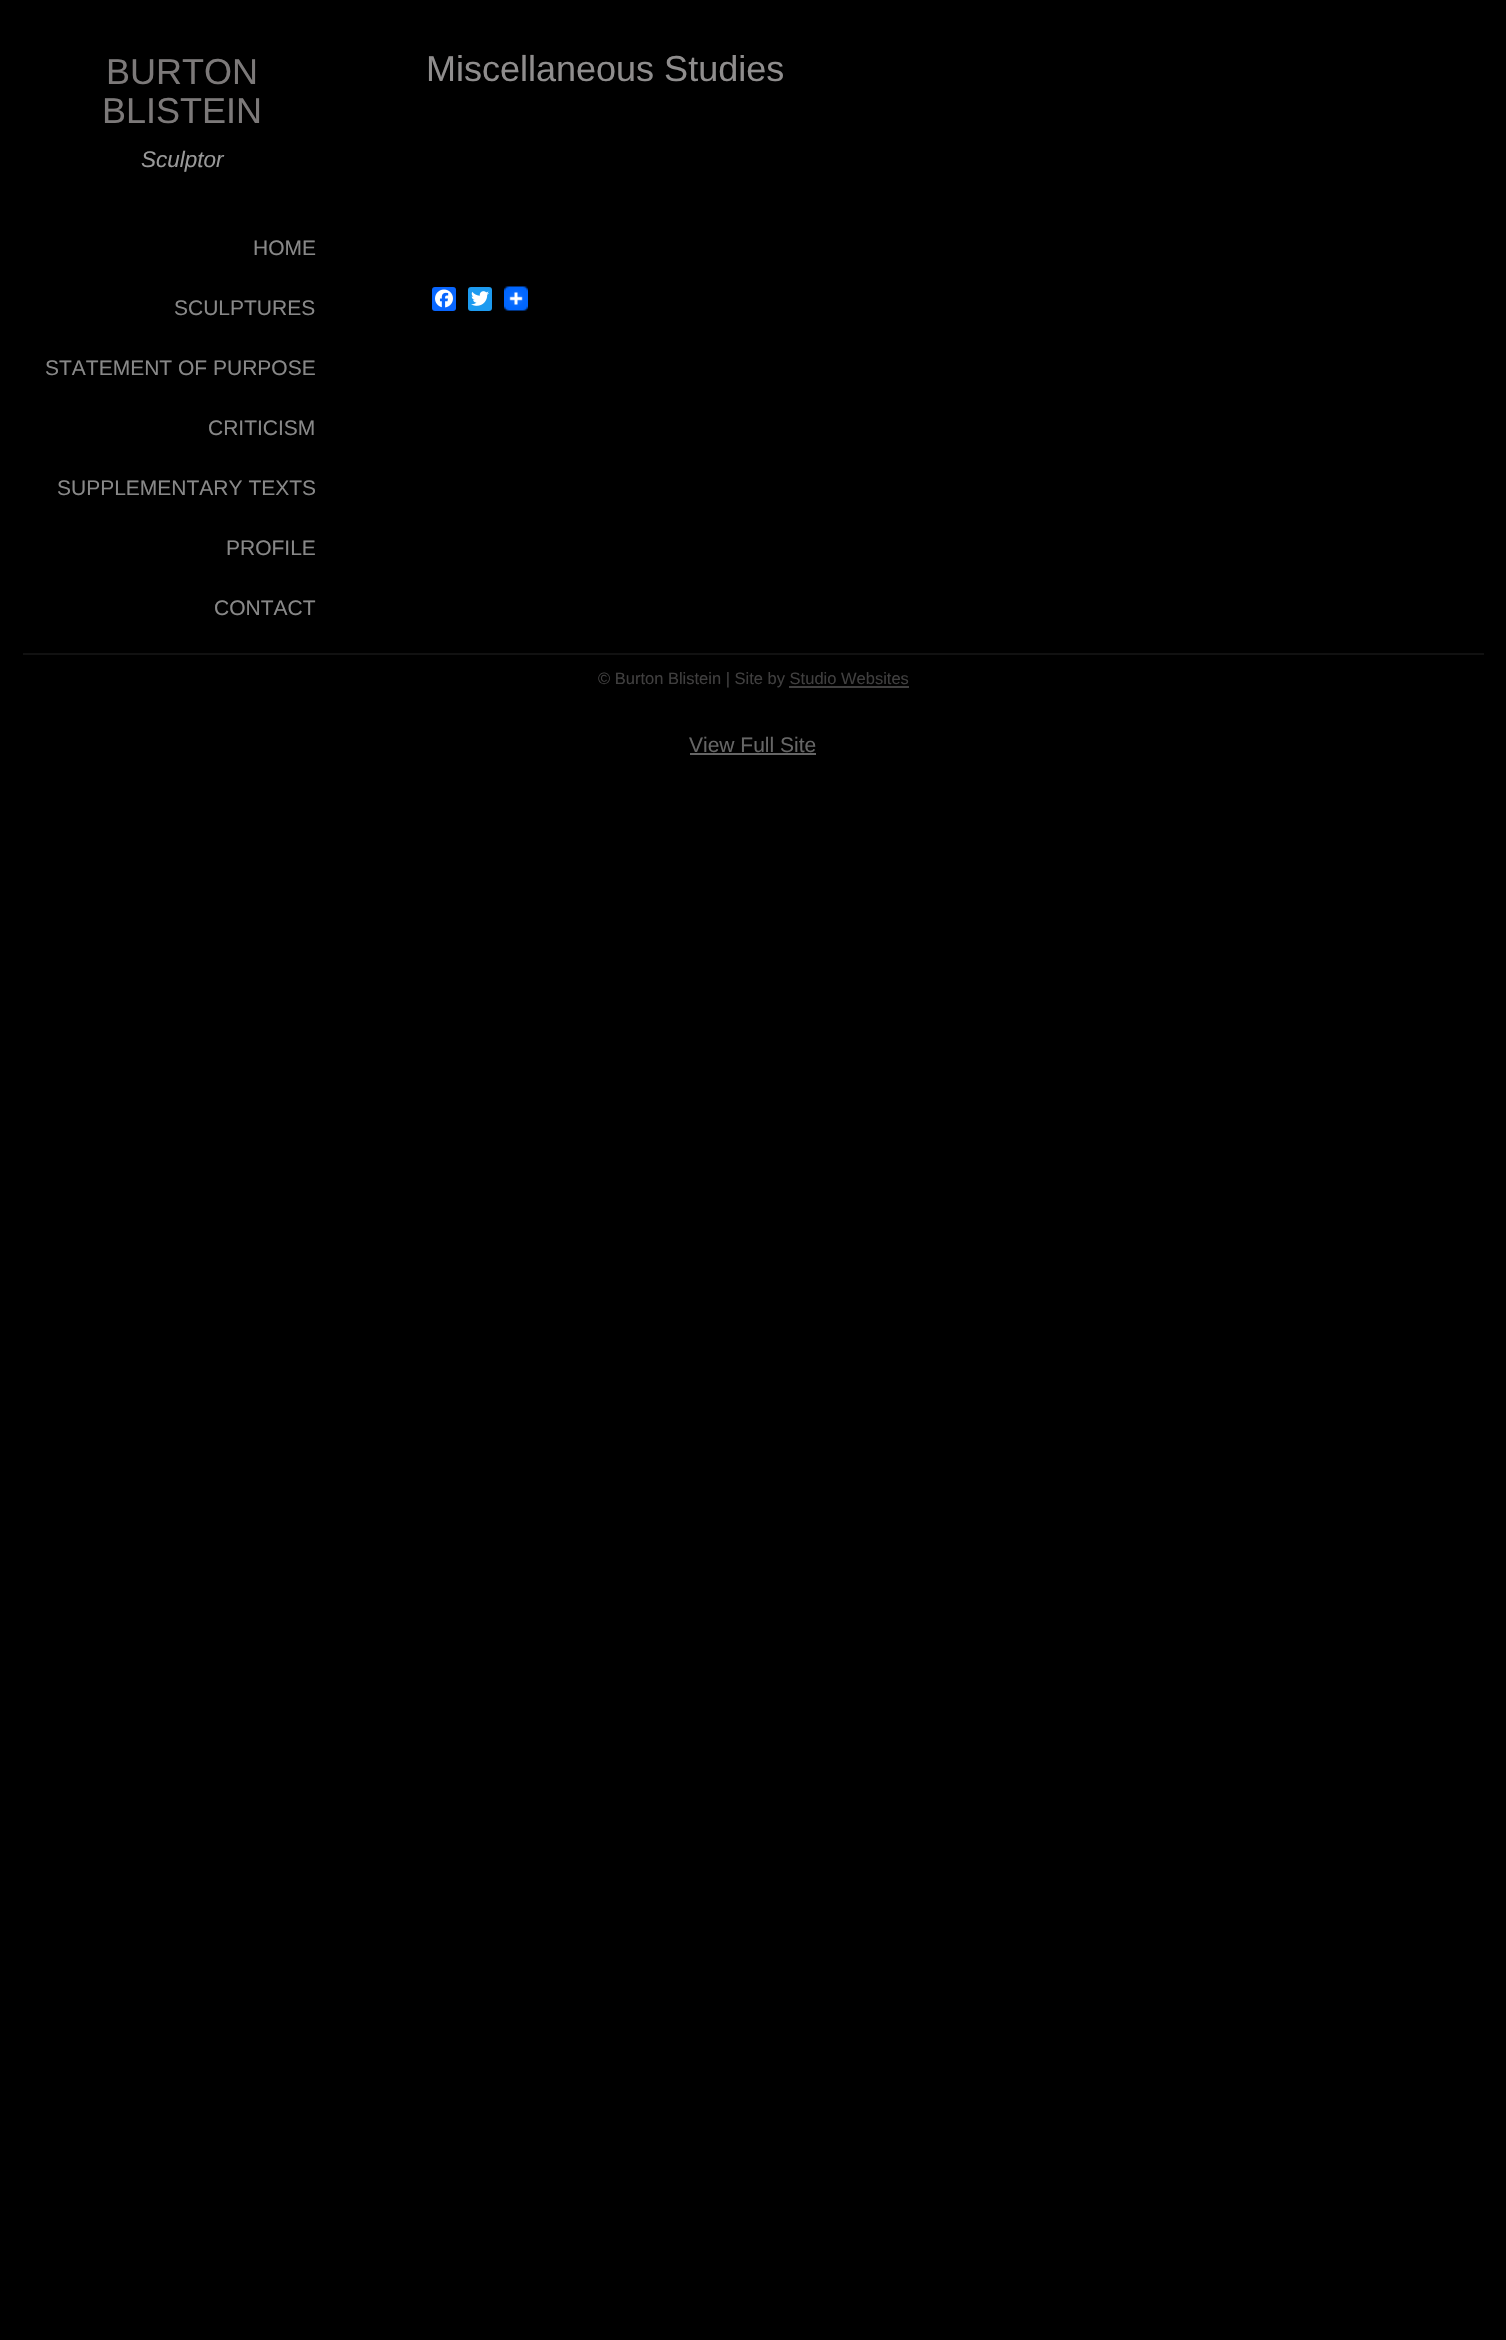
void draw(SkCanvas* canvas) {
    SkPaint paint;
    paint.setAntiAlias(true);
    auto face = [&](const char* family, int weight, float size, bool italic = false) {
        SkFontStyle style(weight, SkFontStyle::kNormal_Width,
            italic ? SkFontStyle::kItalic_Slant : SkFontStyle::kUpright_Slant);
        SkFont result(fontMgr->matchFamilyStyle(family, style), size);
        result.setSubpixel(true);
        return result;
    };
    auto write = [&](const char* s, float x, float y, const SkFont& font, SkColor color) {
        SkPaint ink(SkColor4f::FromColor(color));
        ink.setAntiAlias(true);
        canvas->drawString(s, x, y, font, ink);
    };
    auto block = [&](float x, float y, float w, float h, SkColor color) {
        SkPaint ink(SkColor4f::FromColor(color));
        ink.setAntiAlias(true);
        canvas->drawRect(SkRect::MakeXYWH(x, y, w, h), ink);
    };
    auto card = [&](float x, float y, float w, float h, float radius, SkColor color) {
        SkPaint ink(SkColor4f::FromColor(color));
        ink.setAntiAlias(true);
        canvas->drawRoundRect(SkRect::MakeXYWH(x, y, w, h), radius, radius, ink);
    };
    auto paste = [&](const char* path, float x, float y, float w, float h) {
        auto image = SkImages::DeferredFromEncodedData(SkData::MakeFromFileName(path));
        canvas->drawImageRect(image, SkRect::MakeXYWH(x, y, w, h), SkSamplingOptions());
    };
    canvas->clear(SK_ColorBLACK);
    auto kFont1 = face("Liberation Sans", 400, 36);
    write("BURTON", 106, 84, kFont1, SkColorSetRGB(124, 121, 121));
    write("BLISTEIN", 102, 123, kFont1, SkColorSetRGB(124, 121, 121));
    auto kFont2 = face("Liberation Sans", 400, 22.5f, true);
    write("Sculptor", 141, 167, kFont2, SkColorSetRGB(153, 153, 153));
    auto kFont3 = face("Liberation Sans", 400, 21);
    write("HOME", 253, 255, kFont3, SkColorSetRGB(136, 136, 136));
    write("SCULPTURES", 174, 315, kFont3, SkColorSetRGB(136, 136, 136));
    write("STATEMENT OF PURPOSE", 45, 375, kFont3, SkColorSetRGB(136, 136, 136));
    write("CRITICISM", 208, 435, kFont3, SkColorSetRGB(136, 136, 136));
    write("SUPPLEMENTARY TEXTS", 57, 495, kFont3, SkColorSetRGB(136, 136, 136));
    write("PROFILE", 226, 555, kFont3, SkColorSetRGB(136, 136, 136));
    write("CONTACT", 214, 615, kFont3, SkColorSetRGB(136, 136, 136));
    write("Miscellaneous Studies", 426, 81, kFont1, SkColorSetRGB(143, 141, 141));
    card(432, 287, 24, 24, 3, SkColorSetRGB(8, 102, 255));
    paste("pic1.png", 435, 289, 18, 19);
    card(468, 287, 24, 24, 3, SkColorSetRGB(29, 155, 240));
    paste("pic2.png", 471, 291, 18, 15);
    paste("pic3.png", 504, 286, 24, 25);
    block(23, 653, 1461, 2, SkColorSetRGB(17, 17, 17));
    auto kFont4 = face("Liberation Sans", 400, 16.5f);
    write("© Burton Blistein | Site by Studio Websites", 598, 684, kFont4, SkColorSetRGB(64, 63, 63));
    block(789, 686, 120, 2, SkColorSetRGB(64, 63, 63));
    write("View Full Site", 689, 752, kFont3, SkColorSetRGB(102, 102, 102));
    block(690, 753, 126, 2, SkColorSetRGB(102, 102, 102));
}
